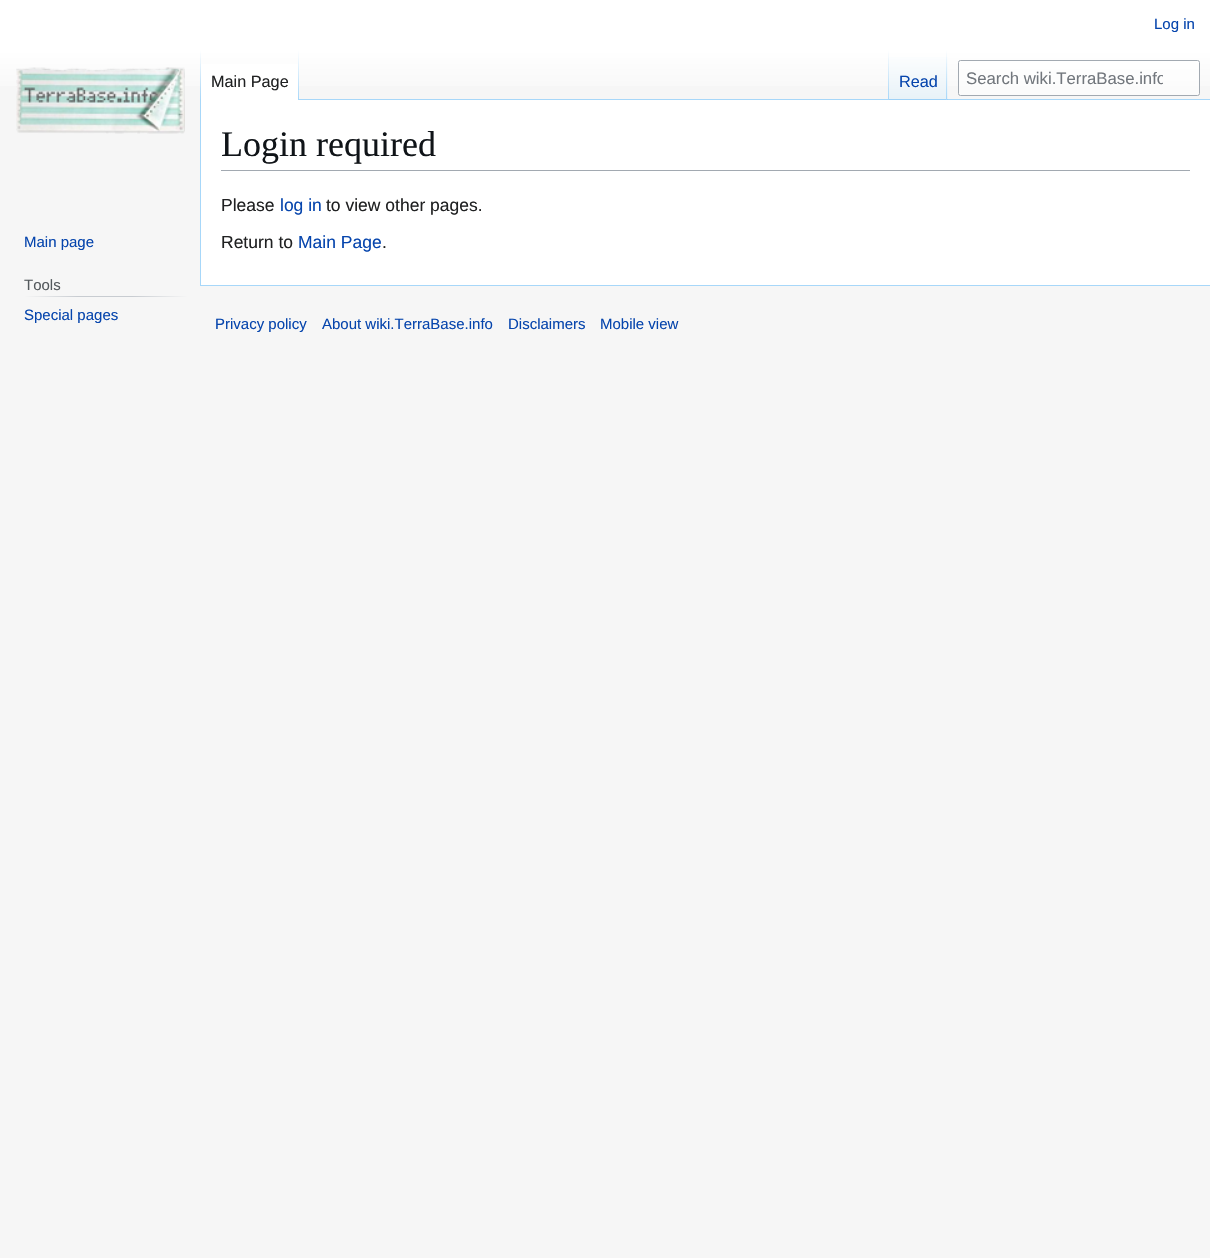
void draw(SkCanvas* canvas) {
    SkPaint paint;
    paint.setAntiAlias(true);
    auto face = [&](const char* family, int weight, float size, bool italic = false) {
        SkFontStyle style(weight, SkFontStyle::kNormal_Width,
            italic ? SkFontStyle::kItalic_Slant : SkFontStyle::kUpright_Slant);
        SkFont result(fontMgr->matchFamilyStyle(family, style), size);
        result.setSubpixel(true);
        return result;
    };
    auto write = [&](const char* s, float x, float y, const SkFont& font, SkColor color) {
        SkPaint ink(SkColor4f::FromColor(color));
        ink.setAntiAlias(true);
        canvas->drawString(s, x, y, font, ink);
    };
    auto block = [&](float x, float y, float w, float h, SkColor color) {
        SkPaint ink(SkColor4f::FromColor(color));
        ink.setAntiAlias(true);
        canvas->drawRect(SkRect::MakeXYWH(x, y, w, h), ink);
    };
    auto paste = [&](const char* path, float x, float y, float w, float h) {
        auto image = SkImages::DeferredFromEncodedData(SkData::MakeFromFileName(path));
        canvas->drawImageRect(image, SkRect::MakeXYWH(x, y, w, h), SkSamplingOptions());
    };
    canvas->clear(SkColorSetRGB(246, 246, 246));
    {
        const SkColor colors[] = {SK_ColorWHITE, SkColorSetRGB(246, 246, 246)};
        const float stops[] = {0.5f, 1};
        const SkPoint ends[] = {{605, 0}, {605, 100}};
        paint.setShader(SkGradientShader::MakeLinear(ends, colors, stops, 2, SkTileMode::kClamp));
        paint.setAlpha(255);
    }
    canvas->drawRect(SkRect::MakeXYWH(0, 0, 1210, 86), paint);
    auto kFont1 = face("Liberation Sans", 400, 15);
    write("Log in", 1154, 29, kFont1, SkColorSetRGB(6, 69, 173));
    block(200, 285, 1010, 1, SkColorSetRGB(167, 215, 249));
    block(200, 99, 1, 187, SkColorSetRGB(167, 215, 249));
    {
        const SkColor colors[] = {SkColorSetARGB(0, 167, 215, 249), SkColorSetRGB(167, 215, 249)};
        const float stops[] = {0, 1};
        const SkPoint ends[] = {{201, 50}, {201, 100}};
        paint.setShader(SkGradientShader::MakeLinear(ends, colors, stops, 2, SkTileMode::kClamp));
        paint.setAlpha(255);
    }
    canvas->drawRect(SkRect::MakeXYWH(200, 50, 1, 50), paint);
    block(201, 64, 97, 36, SK_ColorWHITE);
    {
        const SkColor colors[] = {SK_ColorWHITE, SkColorSetRGB(167, 215, 249)};
        const float stops[] = {0, 1};
        const SkPoint ends[] = {{298, 50}, {298, 100}};
        paint.setShader(SkGradientShader::MakeLinear(ends, colors, stops, 2, SkTileMode::kClamp));
        paint.setAlpha(255);
    }
    canvas->drawRect(SkRect::MakeXYWH(298, 50, 1, 50), paint);
    auto kFont2 = face("Liberation Sans", 400, 16.25f);
    write("Main Page", 211, 87, kFont2, SkColorSetRGB(32, 33, 34));
    block(299, 99, 911, 1, SkColorSetRGB(167, 215, 249));
    {
        const SkColor colors[] = {SkColorSetARGB(0, 167, 215, 249), SkColorSetRGB(167, 215, 249)};
        const float stops[] = {0, 1};
        const SkPoint ends[] = {{888, 50}, {888, 100}};
        paint.setShader(SkGradientShader::MakeLinear(ends, colors, stops, 2, SkTileMode::kClamp));
        paint.setAlpha(255);
    }
    canvas->drawRect(SkRect::MakeXYWH(888, 50, 1, 50), paint);
    {
        const SkColor colors[] = {SkColorSetRGB(119, 193, 246), SkColorSetRGB(232, 242, 248), SK_ColorWHITE};
        const float stops[] = {0, 0.03f, 1};
        const SkPoint ends[] = {{918, 100}, {918, 50}};
        paint.setShader(SkGradientShader::MakeLinear(ends, colors, stops, 3, SkTileMode::kClamp));
        paint.setAlpha(255);
    }
    canvas->drawRect(SkRect::MakeXYWH(889, 57, 59, 43), paint);
    {
        const SkColor colors[] = {SkColorSetARGB(0, 167, 215, 249), SkColorSetRGB(167, 215, 249)};
        const float stops[] = {0, 1};
        const SkPoint ends[] = {{947, 50}, {947, 100}};
        paint.setShader(SkGradientShader::MakeLinear(ends, colors, stops, 2, SkTileMode::kClamp));
        paint.setAlpha(255);
    }
    canvas->drawRect(SkRect::MakeXYWH(946, 50, 1, 50), paint);
    write("Read", 899, 87, kFont2, SkColorSetRGB(6, 69, 173));
    paint.setShader(nullptr);
    paint.setColor(SkColorSetARGB(128, 255, 255, 255));
    canvas->drawRoundRect(SkRect::MakeXYWH(958.5f, 60.5f, 241, 35), 2, 2, paint);
    paint.setStyle(SkPaint::kStroke_Style);
    paint.setStrokeWidth(1);
    paint.setColor(SkColorSetRGB(162, 169, 177));
    canvas->drawRoundRect(SkRect::MakeXYWH(958.5f, 60.5f, 241, 35), 2, 2, paint);
    canvas->save();
    canvas->clipRect(SkRect::MakeXYWH(966, 69, 197, 19));
    auto kFont3 = face("Liberation Sans", 400, 16.75f);
    write("Search wiki.TerraBase.info", 966, 84, kFont3, SkColorSetRGB(114, 119, 125));
    canvas->restore();
    paste("pic1.png", 16, 67, 169, 67);
    write("Main page", 24, 247, kFont1, SkColorSetRGB(6, 69, 173));
    paint.setStyle(SkPaint::kFill_Style);
    {
        const SkColor colors[] = {SkColorSetRGB(246, 246, 246), SkColorSetRGB(200, 204, 209), SkColorSetRGB(200, 204, 209), SkColorSetRGB(246, 246, 246)};
        const float stops[] = {0, 0.33f, 0.66f, 1};
        const SkPoint ends[] = {{24, 297}, {188, 297}};
        paint.setShader(SkGradientShader::MakeLinear(ends, colors, stops, 4, SkTileMode::kClamp));
        paint.setAlpha(255);
    }
    canvas->drawRect(SkRect::MakeXYWH(24, 296, 164, 1), paint);
    write("Tools", 24, 290, kFont1, SkColorSetRGB(84, 89, 93));
    write("Special pages", 24, 320, kFont1, SkColorSetRGB(6, 69, 173));
    block(201, 100, 1009, 185, SK_ColorWHITE);
    block(221, 170, 969, 1, SkColorSetRGB(162, 169, 177));
    auto kFont4 = face("Liberation Serif", 400, 36);
    write("Login required", 221, 156, kFont4, SkColorSetRGB(16, 20, 24));
    auto kFont5 = face("Liberation Sans", 400, 17.5f);
    write("Please", 221, 211, kFont5, SkColorSetRGB(32, 33, 34));
    write("log in", 280, 211, kFont5, SkColorSetRGB(6, 69, 173));
    write("to view other pages.", 326, 211, kFont5, SkColorSetRGB(32, 33, 34));
    write("Return to", 221, 248, kFont5, SkColorSetRGB(32, 33, 34));
    write("Main Page", 298, 248, kFont5, SkColorSetRGB(6, 69, 173));
    write(".", 382, 248, kFont5, SkColorSetRGB(32, 33, 34));
    write("Privacy policy", 215, 329, kFont1, SkColorSetRGB(6, 69, 173));
    write("About wiki.TerraBase.info", 322, 329, kFont1, SkColorSetRGB(6, 69, 173));
    write("Disclaimers", 508, 329, kFont1, SkColorSetRGB(6, 69, 173));
    write("Mobile view", 600, 329, kFont1, SkColorSetRGB(6, 69, 173));
}
